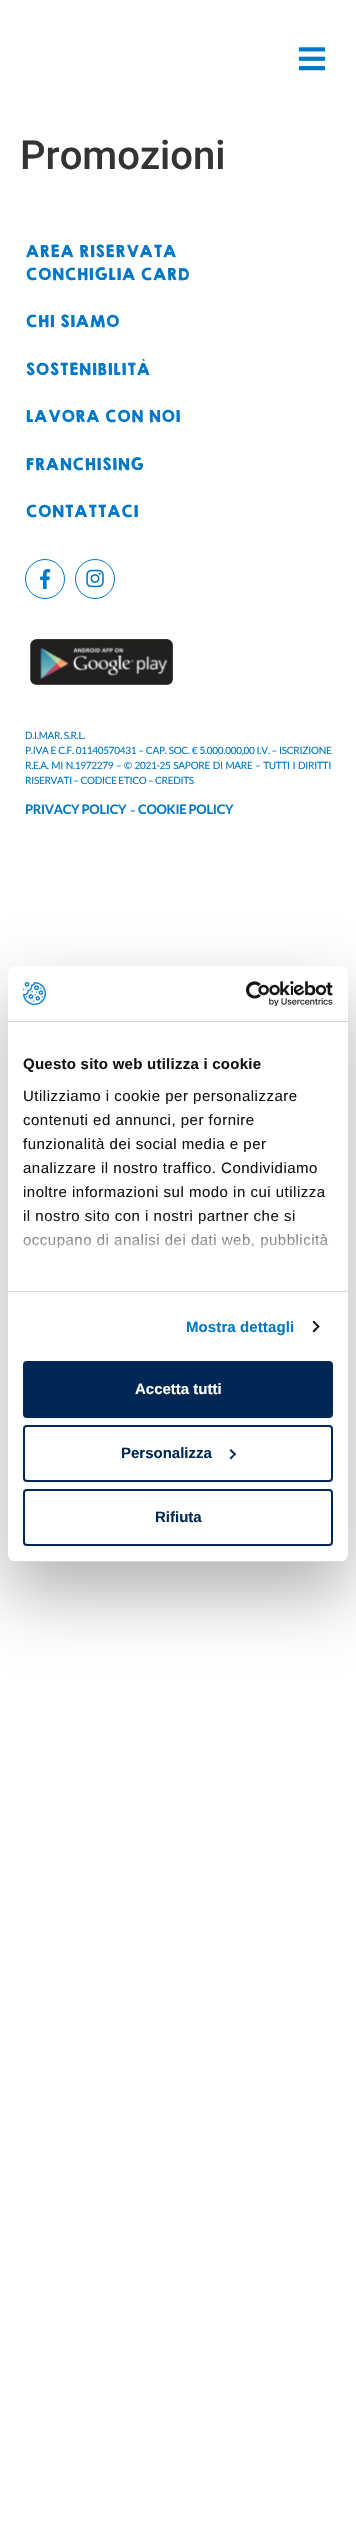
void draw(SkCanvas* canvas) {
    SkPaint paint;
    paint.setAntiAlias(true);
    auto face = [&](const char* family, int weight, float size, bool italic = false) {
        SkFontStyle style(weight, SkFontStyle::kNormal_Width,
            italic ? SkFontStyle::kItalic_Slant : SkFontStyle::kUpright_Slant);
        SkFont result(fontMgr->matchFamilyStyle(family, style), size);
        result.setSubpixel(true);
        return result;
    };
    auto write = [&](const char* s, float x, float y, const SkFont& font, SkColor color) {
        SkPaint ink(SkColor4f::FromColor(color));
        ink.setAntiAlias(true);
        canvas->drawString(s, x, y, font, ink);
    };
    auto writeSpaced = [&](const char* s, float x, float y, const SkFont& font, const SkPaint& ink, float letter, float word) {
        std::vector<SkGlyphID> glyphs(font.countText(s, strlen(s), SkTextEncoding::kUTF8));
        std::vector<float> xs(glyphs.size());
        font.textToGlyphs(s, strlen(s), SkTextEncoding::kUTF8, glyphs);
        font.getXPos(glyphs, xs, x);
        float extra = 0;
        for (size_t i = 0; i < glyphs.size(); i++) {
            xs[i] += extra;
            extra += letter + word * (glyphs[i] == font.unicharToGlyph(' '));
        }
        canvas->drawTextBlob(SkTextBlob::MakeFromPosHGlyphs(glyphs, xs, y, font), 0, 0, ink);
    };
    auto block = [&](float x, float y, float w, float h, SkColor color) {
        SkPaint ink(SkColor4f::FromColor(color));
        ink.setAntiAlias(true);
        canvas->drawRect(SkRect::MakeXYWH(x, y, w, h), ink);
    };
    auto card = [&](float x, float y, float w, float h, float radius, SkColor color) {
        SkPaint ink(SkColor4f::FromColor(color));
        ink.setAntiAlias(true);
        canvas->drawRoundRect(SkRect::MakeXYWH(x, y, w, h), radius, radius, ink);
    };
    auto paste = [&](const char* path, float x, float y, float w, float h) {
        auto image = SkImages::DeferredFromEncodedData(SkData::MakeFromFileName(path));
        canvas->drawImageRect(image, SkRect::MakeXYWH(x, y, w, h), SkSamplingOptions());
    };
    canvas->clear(SK_ColorWHITE);
    paste("pic1.png", 298, 47, 28, 24);
    auto kFont1 = face("Roboto", 500, 40);
    write("Promozioni", 20, 169, kFont1, SkColorSetRGB(51, 51, 51));
    auto kFont2 = face("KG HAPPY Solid", 400, 15);
    write("AREA RISERVATA", 25, 257, kFont2, SkColorSetRGB(0, 119, 200));
    write("CONCHIGLIA CARD", 25, 280, kFont2, SkColorSetRGB(0, 119, 200));
    write("CHI SIAMO", 25, 327, kFont2, SkColorSetRGB(0, 119, 200));
    write("SOSTENIBILITÀ", 25, 375, kFont2, SkColorSetRGB(0, 119, 200));
    write("LAVORA CON NOI", 25, 422, kFont2, SkColorSetRGB(0, 119, 200));
    write("FRANCHISING", 25, 470, kFont2, SkColorSetRGB(0, 119, 200));
    write("CONTATTACI", 25, 517, kFont2, SkColorSetRGB(0, 119, 200));
    paint.setStyle(SkPaint::kStroke_Style);
    paint.setStrokeWidth(1);
    paint.setColor(SkColorSetRGB(0, 119, 200));
    canvas->drawCircle(45, 579, 19.5f, paint);
    paste("pic2.png", 40, 569, 11, 20);
    canvas->drawCircle(95, 579, 19.5f, paint);
    paste("pic3.png", 86, 569, 18, 19);
    paste("pic4.png", 30, 639, 143, 46);
    auto kFont3 = face("Lato", 400, 10);
    paint.setStyle(SkPaint::kFill_Style);
    writeSpaced("D.I.MAR. S.R.L.", 25, 739, kFont3, paint, -0.3f, 0);
    writeSpaced("P.IVA E C.F. 01140570431 – CAP. SOC. € 5.000.000,00 I.V. – ISCRIZIONE", 25, 754, kFont3, paint, -0.3f, 0.5f);
    writeSpaced("R.E.A. MI N.1972279 – © 2021-25 SAPORE DI MARE – TUTTI I DIRITTI", 25, 769, kFont3, paint, -0.3f, 1.1f);
    writeSpaced("RISERVATI – CODICE ETICO – CREDITS", 25, 784, kFont3, paint, -0.3f, 0);
    auto kFont4 = face("Lato", 700, 13);
    writeSpaced("PRIVACY POLICY", 25, 814, kFont4, paint, -0.3f, 0);
    auto kFont5 = face("Lato", 700, 10);
    writeSpaced("–", 130, 814, kFont5, paint, -0.3f, 0);
    writeSpaced("COOKIE POLICY", 138, 814, kFont4, paint, -0.3f, 0);
    paint.setColor(SkColorSetARGB(77, 0, 0, 0));
    paint.setMaskFilter(SkMaskFilter::MakeBlur(kNormal_SkBlurStyle, 34));
    canvas->drawRoundRect(SkRect::MakeXYWH(8, 998, 340, 596), 8, 8, paint);
    paint.setMaskFilter(nullptr);
    card(8, 966, 340, 596, 8, SK_ColorWHITE);
    block(8, 1021, 340, 1, SkColorSetRGB(214, 214, 214));
    paste("pic5.png", 23, 982, 23, 23);
    paste("pic6.png", 246, 981, 87, 25);
    block(8, 1291, 340, 1, SkColorSetRGB(214, 214, 214));
    auto kFont6 = face("Liberation Sans", 700, 15);
    paint.setColor(SkColorSetRGB(20, 20, 20));
    writeSpaced("Questo sito web utilizza i cookie", 23, 1069, kFont6, paint, 0.25f, 0);
    auto kFont7 = face("Liberation Sans", 400, 15);
    writeSpaced("Utilizziamo i cookie per personalizzare", 23, 1101, kFont7, paint, 0.5f, 0);
    writeSpaced("contenuti ed annunci, per fornire", 23, 1125, kFont7, paint, 0.5f, 0);
    writeSpaced("funzionalità dei social media e per", 23, 1149, kFont7, paint, 0.5f, 0);
    writeSpaced("analizzare il nostro traffico. Condividiamo", 23, 1173, kFont7, paint, 0.5f, 0);
    writeSpaced("inoltre informazioni sul modo in cui utilizza", 23, 1197, kFont7, paint, 0.5f, 0);
    writeSpaced("il nostro sito con i nostri partner che si", 23, 1221, kFont7, paint, 0.5f, 0);
    writeSpaced("occupano di analisi dei dati web, pubblicità", 23, 1245, kFont7, paint, 0.5f, 0);
    {
        const SkColor colors[] = {SK_ColorWHITE, SkColorSetARGB(204, 255, 255, 255), SkColorSetARGB(0, 255, 255, 255)};
        const float stops[] = {0, 0.5f, 1};
        const SkPoint ends[] = {{172, 1291}, {172, 1216}};
        paint.setShader(SkGradientShader::MakeLinear(ends, colors, stops, 3, SkTileMode::kClamp));
        paint.setAlpha(255);
    }
    canvas->drawRect(SkRect::MakeXYWH(23, 1217, 305, 32), paint);
    paint.setShader(nullptr);
    paint.setColor(SkColorSetRGB(0, 119, 200));
    writeSpaced("Mostra dettagli", 186, 1332, kFont6, paint, 0.1f, 0);
    paint.setColor(SkColorSetRGB(20, 20, 20));
    canvas->drawPath(SkPathBuilder().moveTo(314, 1320.5f).lineTo(319.5f, 1326.5f).lineTo(318.5f, 1328).lineTo(312.5f, 1322).close().detach(), paint);
    canvas->drawPath(SkPathBuilder().moveTo(318.5f, 1325).lineTo(319.5f, 1326.5f).lineTo(314, 1332.5f).lineTo(312.5f, 1331).close().detach(), paint);
    canvas->save();
    canvas->clipPath(SkPathBuilder().moveTo(16, 966).lineTo(340, 966).cubicTo(344.5f, 966, 348, 969.5f, 348, 974).lineTo(348, 1554).cubicTo(348, 1558.5f, 344.5f, 1562, 340, 1562).lineTo(16, 1562).cubicTo(11.5f, 1562, 8, 1558.5f, 8, 1554).lineTo(8, 974).cubicTo(8, 969.5f, 11.5f, 966, 16, 966).close().detach(), true);
    block(8, 1561, 340, 1, SkColorSetRGB(214, 214, 214));
    canvas->restore();
    paint.setColor(SkColorSetRGB(0, 40, 85));
    canvas->drawRoundRect(SkRect::MakeXYWH(24, 1362, 308, 55), 3, 3, paint);
    paint.setStyle(SkPaint::kStroke_Style);
    paint.setStrokeWidth(2);
    canvas->drawRoundRect(SkRect::MakeXYWH(24, 1362, 308, 55), 3, 3, paint);
    write("Accetta tutti", 135, 1394, kFont6, SK_ColorWHITE);
    canvas->drawRoundRect(SkRect::MakeXYWH(24, 1426, 308, 55), 3, 3, paint);
    write("Personalizza", 121, 1458, kFont6, SkColorSetRGB(0, 40, 85));
    paint.setStyle(SkPaint::kFill_Style);
    canvas->drawPath(SkPathBuilder().moveTo(231, 1449).lineTo(236, 1454).lineTo(235, 1455.5f).lineTo(229.5f, 1450.5f).close().detach(), paint);
    canvas->drawPath(SkPathBuilder().moveTo(235, 1453).lineTo(236, 1454).lineTo(231, 1459.5f).lineTo(229.5f, 1458).close().detach(), paint);
    paint.setStyle(SkPaint::kStroke_Style);
    canvas->drawRoundRect(SkRect::MakeXYWH(24, 1490, 308, 55), 3, 3, paint);
    write("Rifiuta", 155, 1522, kFont6, SkColorSetRGB(0, 40, 85));
}
